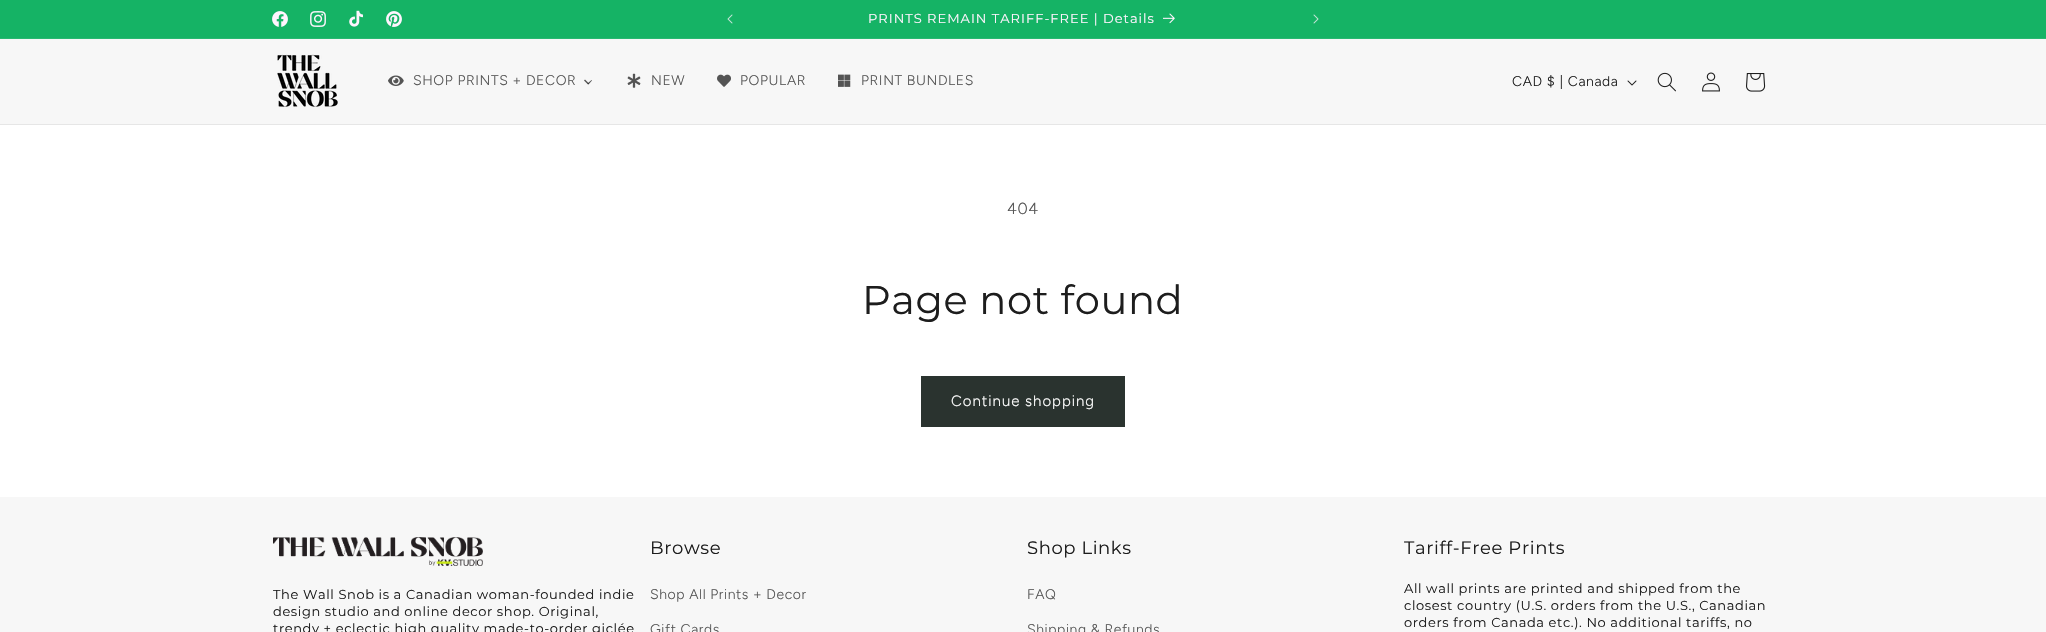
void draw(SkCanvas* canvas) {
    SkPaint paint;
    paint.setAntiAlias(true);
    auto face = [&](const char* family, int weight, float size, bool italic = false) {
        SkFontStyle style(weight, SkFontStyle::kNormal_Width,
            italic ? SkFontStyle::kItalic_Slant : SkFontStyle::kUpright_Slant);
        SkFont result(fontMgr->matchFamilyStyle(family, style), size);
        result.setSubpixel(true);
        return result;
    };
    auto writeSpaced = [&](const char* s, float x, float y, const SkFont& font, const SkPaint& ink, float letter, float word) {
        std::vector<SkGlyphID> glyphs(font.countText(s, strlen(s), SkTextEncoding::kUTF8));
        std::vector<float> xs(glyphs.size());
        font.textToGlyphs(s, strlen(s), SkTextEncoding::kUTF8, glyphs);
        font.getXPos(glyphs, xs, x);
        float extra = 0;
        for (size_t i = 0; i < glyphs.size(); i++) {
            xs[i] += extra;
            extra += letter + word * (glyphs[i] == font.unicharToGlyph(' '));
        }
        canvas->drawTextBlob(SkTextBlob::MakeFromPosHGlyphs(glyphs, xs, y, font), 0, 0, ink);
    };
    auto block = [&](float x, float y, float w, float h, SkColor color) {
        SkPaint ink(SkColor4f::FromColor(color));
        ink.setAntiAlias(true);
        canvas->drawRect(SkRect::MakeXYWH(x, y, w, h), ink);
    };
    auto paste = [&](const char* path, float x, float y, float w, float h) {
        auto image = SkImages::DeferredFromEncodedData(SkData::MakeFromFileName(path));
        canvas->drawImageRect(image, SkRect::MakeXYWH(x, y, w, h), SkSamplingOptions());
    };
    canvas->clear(SK_ColorWHITE);
    block(0, 0, 2046, 38, SkColorSetRGB(21, 179, 101));
    block(0, 38, 2046, 1, SkColorSetRGB(40, 184, 113));
    paste("pic1.png", 272, 11, 16, 16);
    paste("pic2.png", 310, 11, 16, 16);
    paste("pic3.png", 349, 10, 14, 17);
    paste("pic4.png", 386, 11, 16, 16);
    paste("pic5.png", 727, 14, 6, 10);
    auto kFont1 = face("Montserrat", 400, 13);
    paint.setColor(SkColorSetRGB(255, 244, 254));
    writeSpaced("PRINTS REMAIN TARIFF-FREE | Details", 868, 23, kFont1, paint, 1, 0);
    paste("pic6.png", 1163, 13, 12, 11);
    paste("pic7.png", 1313, 14, 6, 10);
    block(0, 39, 2046, 85, SkColorSetRGB(247, 247, 247));
    block(0, 124, 2046, 1, SkColorSetRGB(230, 230, 230));
    paste("pic8.png", 277, 54, 61, 53);
    paste("pic9.png", 388, 75, 16, 11);
    auto kFont2 = face("Figtree", 300, 14);
    paint.setColor(SkColorSetRGB(86, 86, 86));
    writeSpaced("SHOP PRINTS + DECOR", 413, 85, kFont2, paint, 0.6f, 0);
    paint.setColor(SkColorSetRGB(84, 84, 84));
    canvas->drawPath(SkPathBuilder().moveTo(591.5f, 80).lineTo(592, 80.5f).lineTo(588.5f, 84.5f).lineTo(587.5f, 83.5f).close().detach(), paint);
    paint.setColor(SkColorSetARGB(191, 29, 29, 29));
    canvas->drawPath(SkPathBuilder().moveTo(585, 79.5f).lineTo(589, 83.5f).lineTo(588, 84.5f).lineTo(584, 80.5f).close().detach(), paint);
    paste("pic10.png", 627, 73, 14, 15);
    paint.setColor(SkColorSetRGB(86, 86, 86));
    writeSpaced("NEW", 651, 85, kFont2, paint, 0.6f, 0);
    paste("pic11.png", 717, 74, 14, 13);
    writeSpaced("POPULAR", 740, 85, kFont2, paint, 0.6f, 0);
    paste("pic12.png", 838, 74, 13, 13);
    writeSpaced("PRINT BUNDLES", 861, 85, kFont2, paint, 0.6f, 0);
    paint.setColor(SkColorSetRGB(29, 29, 29));
    writeSpaced("CAD $ | Canada", 1512, 86, kFont2, paint, 0.6f, 0);
    paste("pic13.png", 1627, 80, 10, 6);
    paste("pic14.png", 1657, 72, 19, 20);
    paste("pic15.png", 1702, 72, 18, 20);
    paste("pic16.png", 1746, 73, 20, 19);
    auto kFont3 = face("Figtree", 300, 16);
    paint.setColor(SkColorSetRGB(86, 86, 86));
    writeSpaced("404", 1007, 214, kFont3, paint, 0.6f, 0);
    auto kFont4 = face("Montserrat", 400, 40);
    paint.setColor(SkColorSetRGB(29, 29, 29));
    writeSpaced("Page not found", 862, 314, kFont4, paint, 0.6f, 0);
    block(921, 376, 204, 51, SkColorSetRGB(42, 51, 47));
    auto kFont5 = face("Figtree", 300, 15);
    paint.setColor(SK_ColorWHITE);
    writeSpaced("Continue shopping", 951, 406, kFont5, paint, 1, 0);
    block(0, 497, 2046, 135, SkColorSetRGB(247, 247, 247));
    paste("pic17.png", 273, 537, 210, 29);
    paint.setColor(SkColorSetRGB(29, 29, 29));
    writeSpaced("The Wall Snob is a Canadian woman-founded indie", 273, 599, kFont1, paint, 0.6f, 0);
    writeSpaced("design studio and online decor shop. Original,", 273, 616, kFont1, paint, 0.6f, 0);
    writeSpaced("trendy + eclectic high quality made-to-order giclée", 273, 633, kFont1, paint, 0.6f, 0);
    auto kFont6 = face("Montserrat", 400, 18);
    writeSpaced("Browse", 650, 554, kFont6, paint, 0.6f, 0);
    paint.setColor(SkColorSetRGB(86, 86, 86));
    writeSpaced("Shop All Prints + Decor", 650, 599, kFont2, paint, 0.6f, 0);
    writeSpaced("Gift Cards", 650, 634, kFont2, paint, 0.6f, 0);
    paint.setColor(SkColorSetRGB(29, 29, 29));
    writeSpaced("Shop Links", 1027, 554, kFont6, paint, 0.6f, 0);
    paint.setColor(SkColorSetRGB(86, 86, 86));
    writeSpaced("FAQ", 1027, 599, kFont2, paint, 0.6f, 0);
    writeSpaced("Shipping & Refunds", 1027, 634, kFont2, paint, 0.6f, 0);
    paint.setColor(SkColorSetRGB(29, 29, 29));
    writeSpaced("Tariff-Free Prints", 1404, 554, kFont6, paint, 0.6f, 0);
    writeSpaced("All wall prints are printed and shipped from the", 1404, 593, kFont1, paint, 0.6f, 0);
    writeSpaced("closest country (U.S. orders from the U.S., Canadian", 1404, 610, kFont1, paint, 0.6f, 0);
    writeSpaced("orders from Canada etc.). No additional tariffs, no", 1404, 627, kFont1, paint, 0.6f, 0);
}
